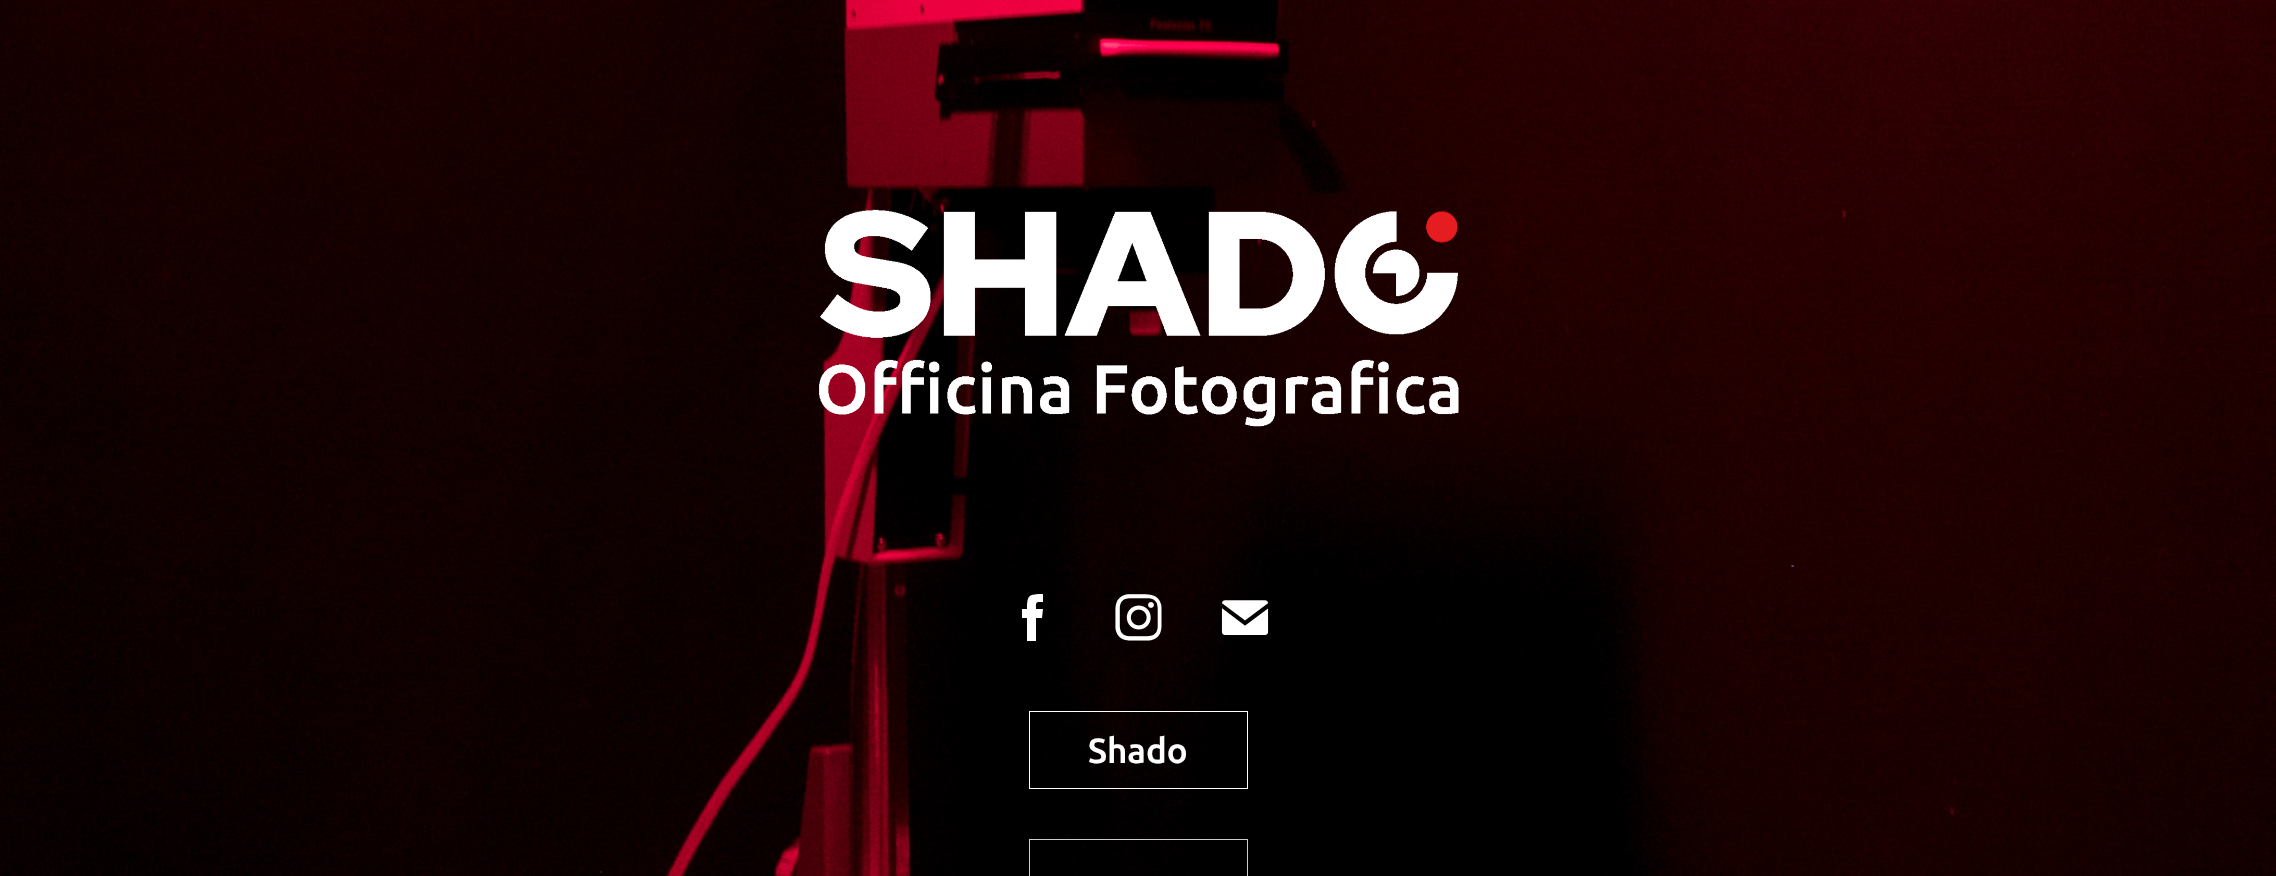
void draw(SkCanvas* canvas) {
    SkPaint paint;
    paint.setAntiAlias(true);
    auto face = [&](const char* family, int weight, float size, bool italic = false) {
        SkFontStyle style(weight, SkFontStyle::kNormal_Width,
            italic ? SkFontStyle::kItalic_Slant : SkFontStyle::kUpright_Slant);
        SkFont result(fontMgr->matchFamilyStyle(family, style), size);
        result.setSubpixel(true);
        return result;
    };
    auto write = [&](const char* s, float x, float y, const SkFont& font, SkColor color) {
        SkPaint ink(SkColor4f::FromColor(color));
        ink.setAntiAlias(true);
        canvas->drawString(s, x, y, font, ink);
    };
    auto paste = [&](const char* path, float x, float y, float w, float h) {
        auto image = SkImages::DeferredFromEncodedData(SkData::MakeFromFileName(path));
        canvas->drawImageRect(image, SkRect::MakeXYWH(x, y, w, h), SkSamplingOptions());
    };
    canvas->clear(SK_ColorWHITE);
    paste("pic1.png", 0, 0, 2276, 876);
    paste("pic2.png", 819, 209, 640, 218);
    paint.setColor(SK_ColorWHITE);
    canvas->drawPath(SkPathBuilder().moveTo(1036, 641).lineTo(1027, 641).lineTo(1027, 618).lineTo(1022, 618).lineTo(1022, 609).lineTo(1027, 609).cubicTo(1027, 595, 1029, 594, 1043, 594).lineTo(1043, 602).cubicTo(1035, 602, 1036, 602, 1036, 609).lineTo(1043, 609).lineTo(1042, 618).lineTo(1036, 618).close().detach(), paint);
    paste("pic3.png", 1115, 594, 47, 47);
    paste("pic4.png", 1221, 600, 48, 35);
    paint.setStyle(SkPaint::kStroke_Style);
    paint.setStrokeWidth(1);
    canvas->drawRect(SkRect::MakeXYWH(1029.5f, 711.5f, 218, 77), paint);
    auto kFont1 = face("Ubuntu", 500, 35);
    write("Shado", 1088, 763, kFont1, SK_ColorWHITE);
    paint.setColor(SkColorSetARGB(204, 255, 255, 255));
    canvas->drawRect(SkRect::MakeXYWH(1029.5f, 839.5f, 218, 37), paint);
}
